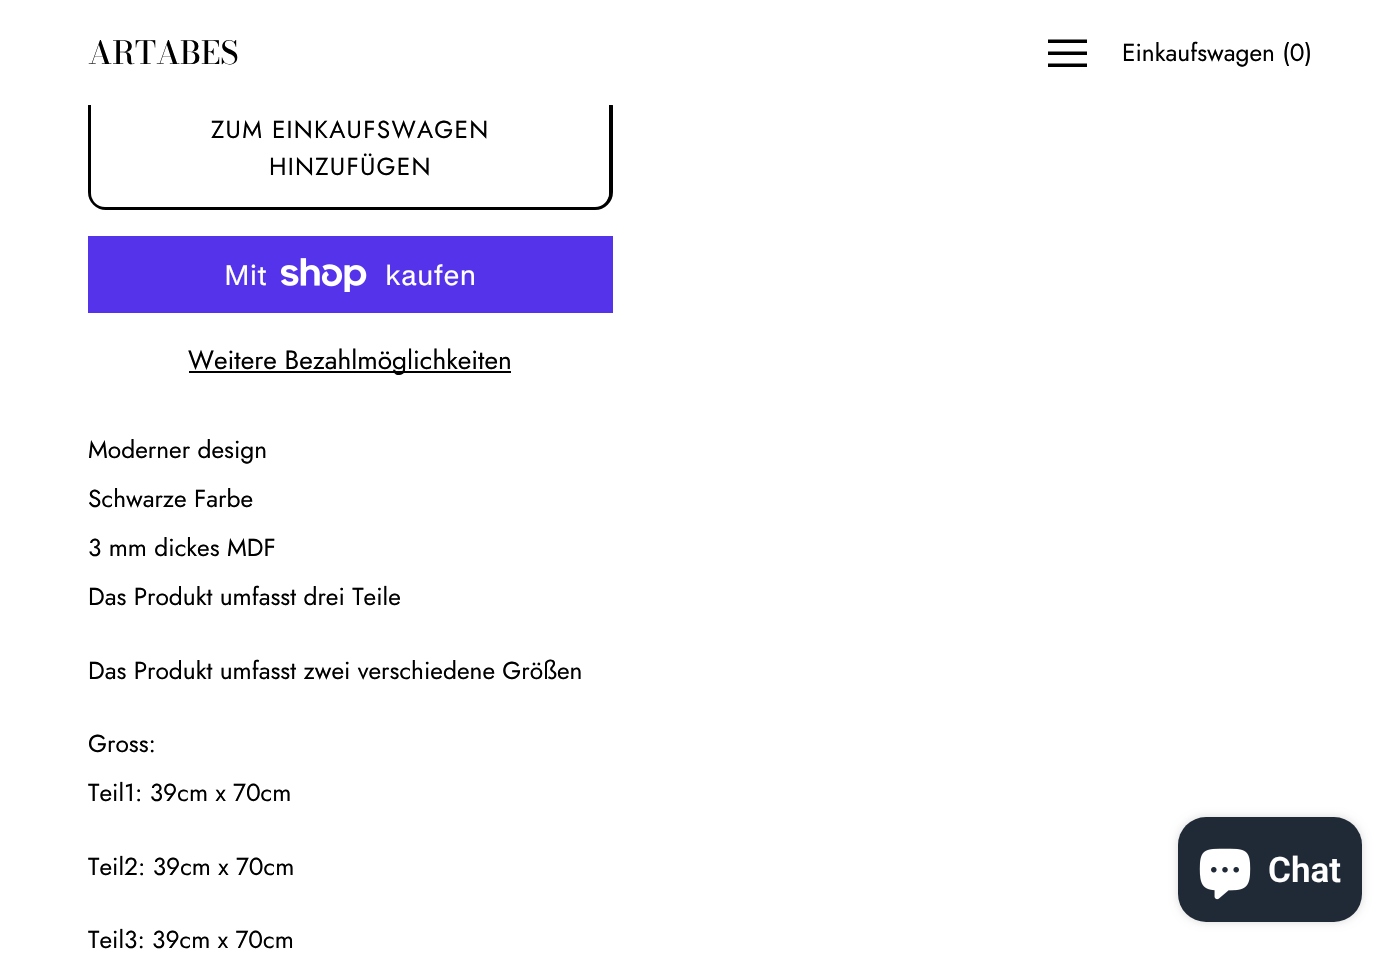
void draw(SkCanvas* canvas) {
    SkPaint paint;
    paint.setAntiAlias(true);
    auto face = [&](const char* family, int weight, float size, bool italic = false) {
        SkFontStyle style(weight, SkFontStyle::kNormal_Width,
            italic ? SkFontStyle::kItalic_Slant : SkFontStyle::kUpright_Slant);
        SkFont result(fontMgr->matchFamilyStyle(family, style), size);
        result.setSubpixel(true);
        return result;
    };
    auto write = [&](const char* s, float x, float y, const SkFont& font, SkColor color) {
        SkPaint ink(SkColor4f::FromColor(color));
        ink.setAntiAlias(true);
        canvas->drawString(s, x, y, font, ink);
    };
    auto writeSpaced = [&](const char* s, float x, float y, const SkFont& font, const SkPaint& ink, float letter, float word) {
        std::vector<SkGlyphID> glyphs(font.countText(s, strlen(s), SkTextEncoding::kUTF8));
        std::vector<float> xs(glyphs.size());
        font.textToGlyphs(s, strlen(s), SkTextEncoding::kUTF8, glyphs);
        font.getXPos(glyphs, xs, x);
        float extra = 0;
        for (size_t i = 0; i < glyphs.size(); i++) {
            xs[i] += extra;
            extra += letter + word * (glyphs[i] == font.unicharToGlyph(' '));
        }
        canvas->drawTextBlob(SkTextBlob::MakeFromPosHGlyphs(glyphs, xs, y, font), 0, 0, ink);
    };
    auto block = [&](float x, float y, float w, float h, SkColor color) {
        SkPaint ink(SkColor4f::FromColor(color));
        ink.setAntiAlias(true);
        canvas->drawRect(SkRect::MakeXYWH(x, y, w, h), ink);
    };
    auto card = [&](float x, float y, float w, float h, float radius, SkColor color) {
        SkPaint ink(SkColor4f::FromColor(color));
        ink.setAntiAlias(true);
        canvas->drawRoundRect(SkRect::MakeXYWH(x, y, w, h), radius, radius, ink);
    };
    auto paste = [&](const char* path, float x, float y, float w, float h) {
        auto image = SkImages::DeferredFromEncodedData(SkData::MakeFromFileName(path));
        canvas->drawImageRect(image, SkRect::MakeXYWH(x, y, w, h), SkSamplingOptions());
    };
    canvas->clear(SK_ColorWHITE);
    paint.setStyle(SkPaint::kStroke_Style);
    paint.setStrokeWidth(4);
    paint.setColor(SK_ColorBLACK);
    canvas->drawRoundRect(SkRect::MakeXYWH(90, 90, 521, 118), 16, 16, paint);
    card(91, 91, 518, 116, 14, SK_ColorWHITE);
    block(88, 88, 525, 17, SK_ColorWHITE);
    auto kFont1 = face("Bodoni Moda", 500, 31.5f);
    write("ARTABES", 88, 64, kFont1, SK_ColorBLACK);
    paint.setStyle(SkPaint::kFill_Style);
    canvas->drawPath(SkPathBuilder().moveTo(1048, 39.5f).lineTo(1048, 43).lineTo(1087, 43).lineTo(1087, 39.5f).close().moveTo(1048, 51.5f).lineTo(1048, 55).lineTo(1087, 55).lineTo(1087, 51.5f).close().moveTo(1048, 63.5f).lineTo(1048, 67).lineTo(1087, 67).lineTo(1087, 63.5f).close().detach(), paint);
    auto kFont2 = face("Jost", 400, 24.5f);
    write("Einkaufswagen (0)", 1122, 61, kFont2, SK_ColorBLACK);
    writeSpaced("ZUM EINKAUFSWAGEN", 211, 138, kFont2, paint, 1.25f, 0);
    writeSpaced("HINZUFÜGEN", 269, 175, kFont2, paint, 1.25f, 0);
    block(88, 236, 525, 77, SkColorSetRGB(84, 51, 235));
    auto kFont3 = face("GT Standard", 400, 28);
    write("Mit", 224, 285, kFont3, SK_ColorWHITE);
    paste("pic1.png", 281, 258, 86, 34);
    write("kaufen", 385, 285, kFont3, SK_ColorWHITE);
    block(189, 371, 322, 2, SK_ColorBLACK);
    auto kFont4 = face("Jost", 400, 26.25f);
    write("Weitere Bezahlmöglichkeiten", 188, 369, kFont4, SK_ColorBLACK);
    write("Moderner design", 88, 458, kFont2, SK_ColorBLACK);
    write("Schwarze Farbe", 88, 507, kFont2, SK_ColorBLACK);
    write("3 mm dickes MDF", 88, 556, kFont2, SK_ColorBLACK);
    write("Das Produkt umfasst drei Teile", 88, 605, kFont2, SK_ColorBLACK);
    write("Das Produkt umfasst zwei verschiedene Größen", 88, 679, kFont2, SK_ColorBLACK);
    write("Gross:", 88, 752, kFont2, SK_ColorBLACK);
    write("Teil1: 39cm x 70cm", 88, 801, kFont2, SK_ColorBLACK);
    write("Teil2: 39cm x 70cm", 88, 875, kFont2, SK_ColorBLACK);
    write("Teil3: 39cm x 70cm", 88, 948, kFont2, SK_ColorBLACK);
    paint.setColor(SkColorSetARGB(38, 0, 0, 0));
    paint.setMaskFilter(SkMaskFilter::MakeBlur(kNormal_SkBlurStyle, 4.5f));
    canvas->drawRoundRect(SkRect::MakeXYWH(1178, 817, 184, 105), 28, 28, paint);
    paint.setMaskFilter(nullptr);
    card(1178, 817, 184, 105, 28, SkColorSetRGB(32, 42, 54));
    paste("pic2.png", 1199, 848, 52, 52);
    auto kFont5 = face("Roboto", 600, 35);
    write("Chat", 1268, 882, kFont5, SK_ColorWHITE);
}
